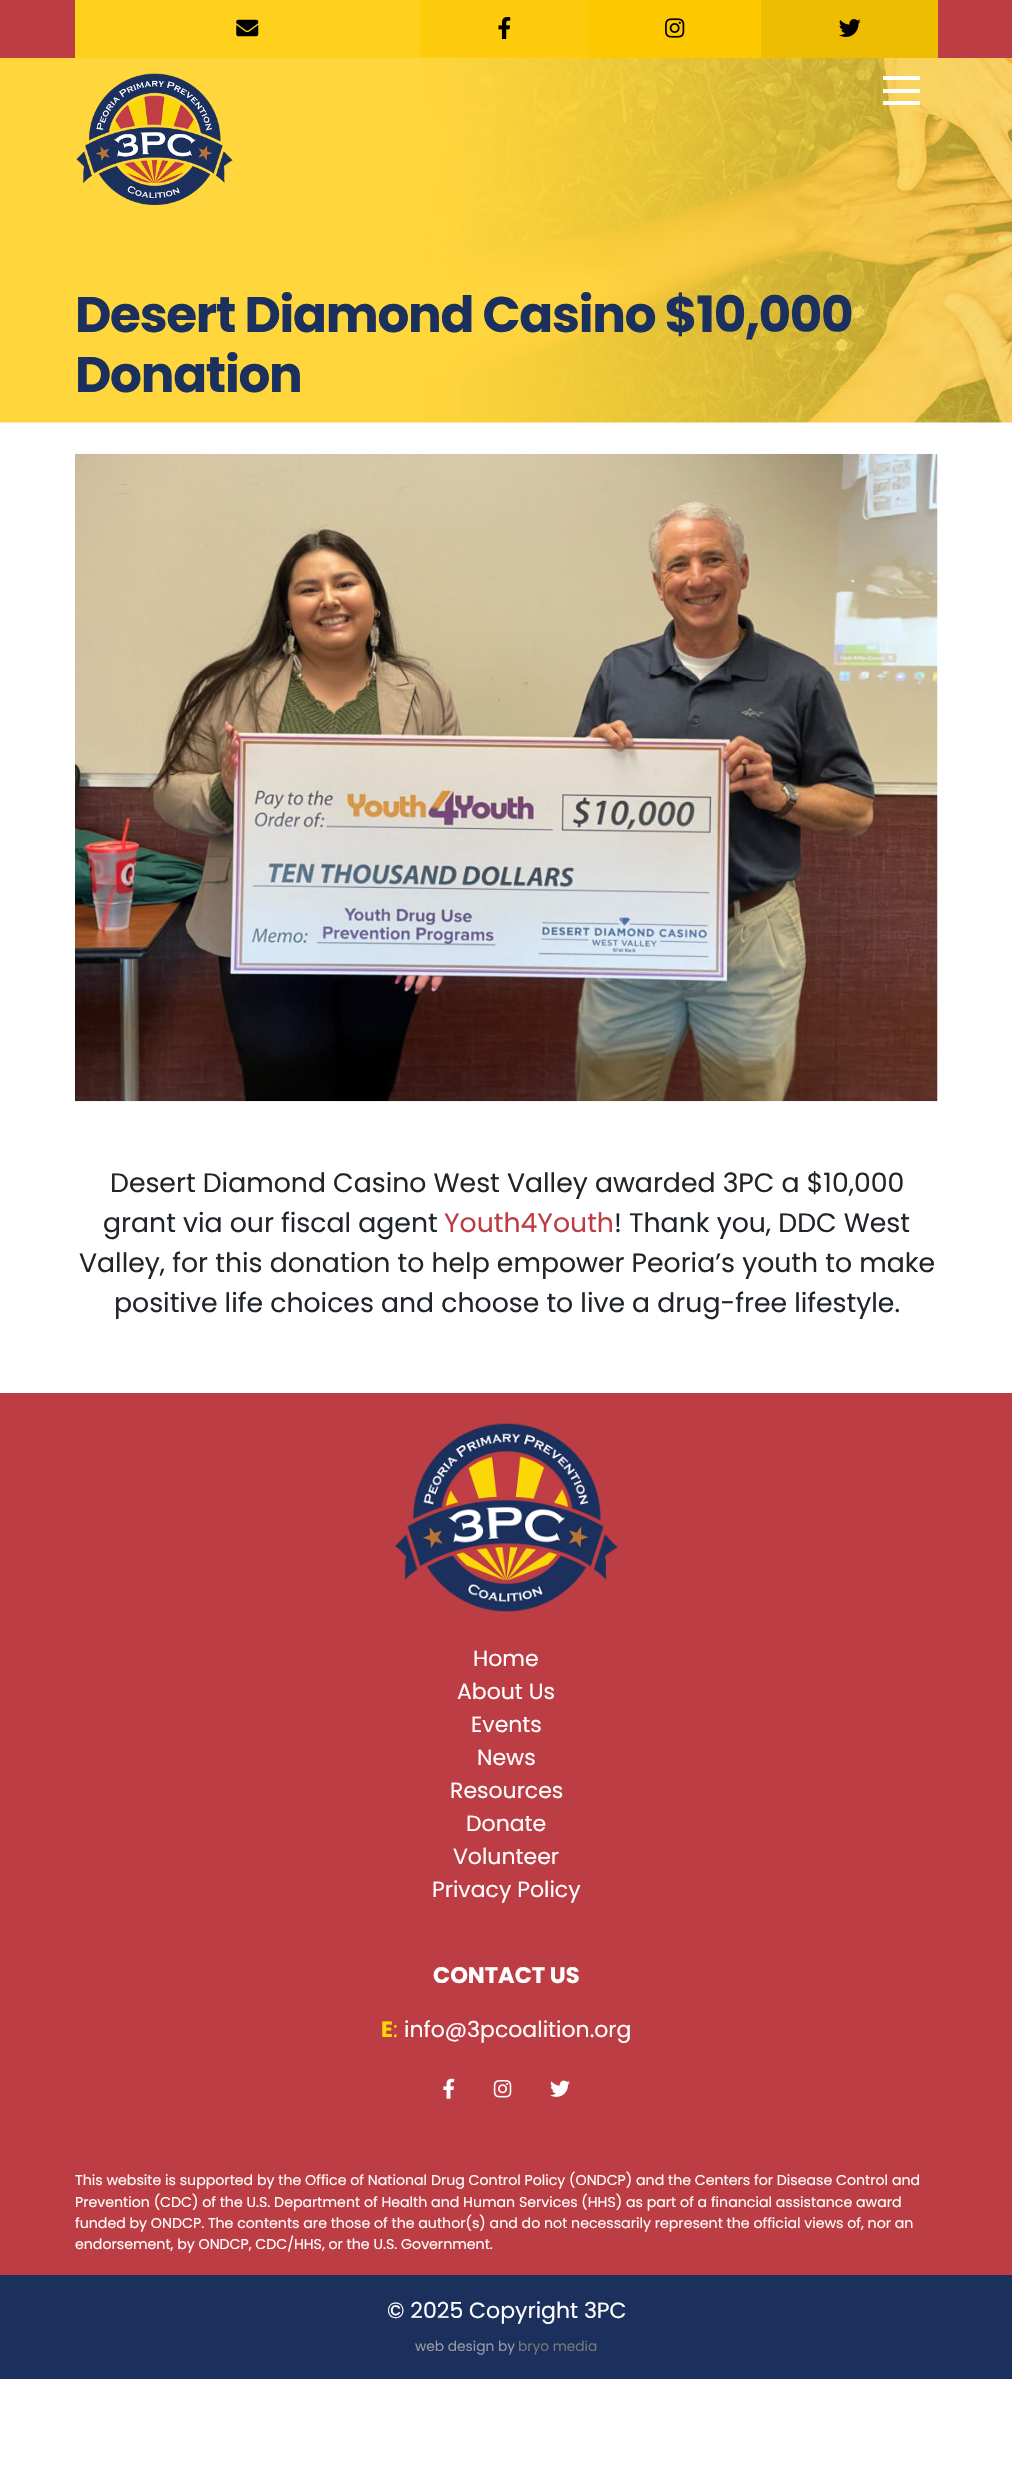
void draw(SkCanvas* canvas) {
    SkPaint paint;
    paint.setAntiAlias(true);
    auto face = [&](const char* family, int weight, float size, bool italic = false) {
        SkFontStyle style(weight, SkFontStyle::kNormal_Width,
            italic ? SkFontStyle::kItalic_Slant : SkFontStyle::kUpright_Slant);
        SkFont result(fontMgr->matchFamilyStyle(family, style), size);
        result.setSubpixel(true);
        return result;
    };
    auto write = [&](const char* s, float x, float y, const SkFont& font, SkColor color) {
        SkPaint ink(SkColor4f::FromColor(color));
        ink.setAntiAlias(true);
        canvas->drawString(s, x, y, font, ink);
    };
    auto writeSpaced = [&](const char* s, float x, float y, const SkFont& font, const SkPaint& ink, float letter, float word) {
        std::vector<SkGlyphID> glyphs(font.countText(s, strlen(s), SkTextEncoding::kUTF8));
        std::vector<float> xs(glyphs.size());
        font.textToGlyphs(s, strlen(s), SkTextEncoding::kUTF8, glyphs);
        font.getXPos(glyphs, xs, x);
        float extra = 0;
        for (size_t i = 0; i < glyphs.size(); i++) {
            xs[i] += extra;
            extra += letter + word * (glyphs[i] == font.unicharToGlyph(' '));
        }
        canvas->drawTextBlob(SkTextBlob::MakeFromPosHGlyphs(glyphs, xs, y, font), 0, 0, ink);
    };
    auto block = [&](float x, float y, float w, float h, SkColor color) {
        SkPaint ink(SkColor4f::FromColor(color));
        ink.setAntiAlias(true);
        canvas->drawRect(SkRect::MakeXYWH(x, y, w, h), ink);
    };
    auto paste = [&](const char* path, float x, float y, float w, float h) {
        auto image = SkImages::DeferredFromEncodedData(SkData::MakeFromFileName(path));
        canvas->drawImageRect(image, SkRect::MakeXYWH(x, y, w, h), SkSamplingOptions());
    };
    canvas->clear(SK_ColorWHITE);
    block(0, 0, 1012, 58, SkColorSetRGB(188, 61, 68));
    block(75, 0, 345, 58, SkColorSetRGB(255, 208, 28));
    paste("pic1.png", 236, 19, 23, 18);
    block(420, 0, 168, 58, SkColorSetRGB(255, 204, 13));
    paste("pic2.png", 498, 17, 13, 22);
    block(588, 0, 173, 58, SkColorSetRGB(253, 200, 0));
    paste("pic3.png", 665, 18, 20, 20);
    block(761, 0, 177, 58, SkColorSetRGB(238, 188, 0));
    paste("pic4.png", 839, 19, 22, 18);
    paste("pic6.png", 0, 58, 1012, 365);
    paste("pic5.png", 76, 73, 157, 132);
    block(883, 76, 37, 4, SK_ColorWHITE);
    block(883, 89, 37, 4, SK_ColorWHITE);
    block(883, 101, 37, 4, SK_ColorWHITE);
    auto kFont1 = face("Poppins", 700, 50);
    paint.setColor(SkColorSetRGB(27, 48, 93));
    writeSpaced("Desert Diamond Casino $10,000", 75, 332, kFont1, paint, -1.25f, 0);
    writeSpaced("Donation", 75, 392, kFont1, paint, -1.25f, 0);
    paste("pic7.png", 75, 453, 863, 649);
    auto kFont2 = face("Poppins", 400, 26.7f);
    write("Desert Diamond Casino West Valley awarded 3PC a $10,000", 110, 1192, kFont2, SkColorSetRGB(33, 37, 41));
    write("grant via our fiscal agent", 103, 1232, kFont2, SkColorSetRGB(33, 37, 41));
    write("Youth4Youth", 444, 1232, kFont2, SkColorSetRGB(188, 61, 68));
    write("! Thank you, DDC West", 614, 1232, kFont2, SkColorSetRGB(33, 37, 41));
    write("Valley, for this donation to help empower Peoria’s youth to make", 79, 1272, kFont2, SkColorSetRGB(33, 37, 41));
    write("positive life choices and choose to live a drug-free lifestyle.", 114, 1312, kFont2, SkColorSetRGB(33, 37, 41));
    block(0, 1393, 1012, 882, SkColorSetRGB(188, 61, 68));
    paste("pic8.png", 395, 1423, 223, 189);
    auto kFont3 = face("Poppins", 400, 22);
    write("Home", 473, 1666, kFont3, SK_ColorWHITE);
    write("About Us", 457, 1699, kFont3, SK_ColorWHITE);
    write("Events", 471, 1732, kFont3, SK_ColorWHITE);
    write("News", 477, 1765, kFont3, SK_ColorWHITE);
    write("Resources", 450, 1798, kFont3, SK_ColorWHITE);
    write("Donate", 466, 1831, kFont3, SK_ColorWHITE);
    write("Volunteer", 453, 1864, kFont3, SK_ColorWHITE);
    write("Privacy Policy", 432, 1897, kFont3, SK_ColorWHITE);
    auto kFont4 = face("Poppins", 700, 22.5f);
    write("CONTACT US", 433, 1983, kFont4, SK_ColorWHITE);
    auto kFont5 = face("Poppins", 700, 22);
    write("E", 381, 2037, kFont5, SkColorSetRGB(255, 214, 8));
    write(":", 393, 2037, kFont3, SkColorSetRGB(255, 214, 8));
    write("info@3pcoalition.org", 404, 2037, kFont3, SK_ColorWHITE);
    paste("pic9.png", 443, 2078, 12, 21);
    paste("pic10.png", 493, 2080, 19, 18);
    paste("pic11.png", 550, 2080, 20, 17);
    auto kFont6 = face("Poppins", 400, 14.17f);
    write("This website is supported by the Office of National Drug Control Policy (ONDCP) and the Centers for Disease Control and", 75, 2185, kFont6, SK_ColorWHITE);
    write("Prevention (CDC) of the U.S. Department of Health and Human Services (HHS) as part of a financial assistance award", 75, 2207, kFont6, SK_ColorWHITE);
    write("funded by ONDCP. The contents are those of the author(s) and do not necessarily represent the official views of, nor an", 75, 2228, kFont6, SK_ColorWHITE);
    write("endorsement, by ONDCP, CDC/HHS, or the U.S. Government.", 75, 2249, kFont6, SK_ColorWHITE);
    block(0, 2275, 1012, 104, SkColorSetRGB(27, 48, 93));
    write("© 2025 Copyright 3PC", 387, 2318, kFont3, SK_ColorWHITE);
    auto kFont7 = face("Poppins", 400, 13.75f);
    write("web design by", 415, 2351, kFont7, SkColorSetRGB(156, 152, 163));
    write("bryo media", 518, 2351, kFont7, SkColorSetRGB(119, 119, 119));
}
